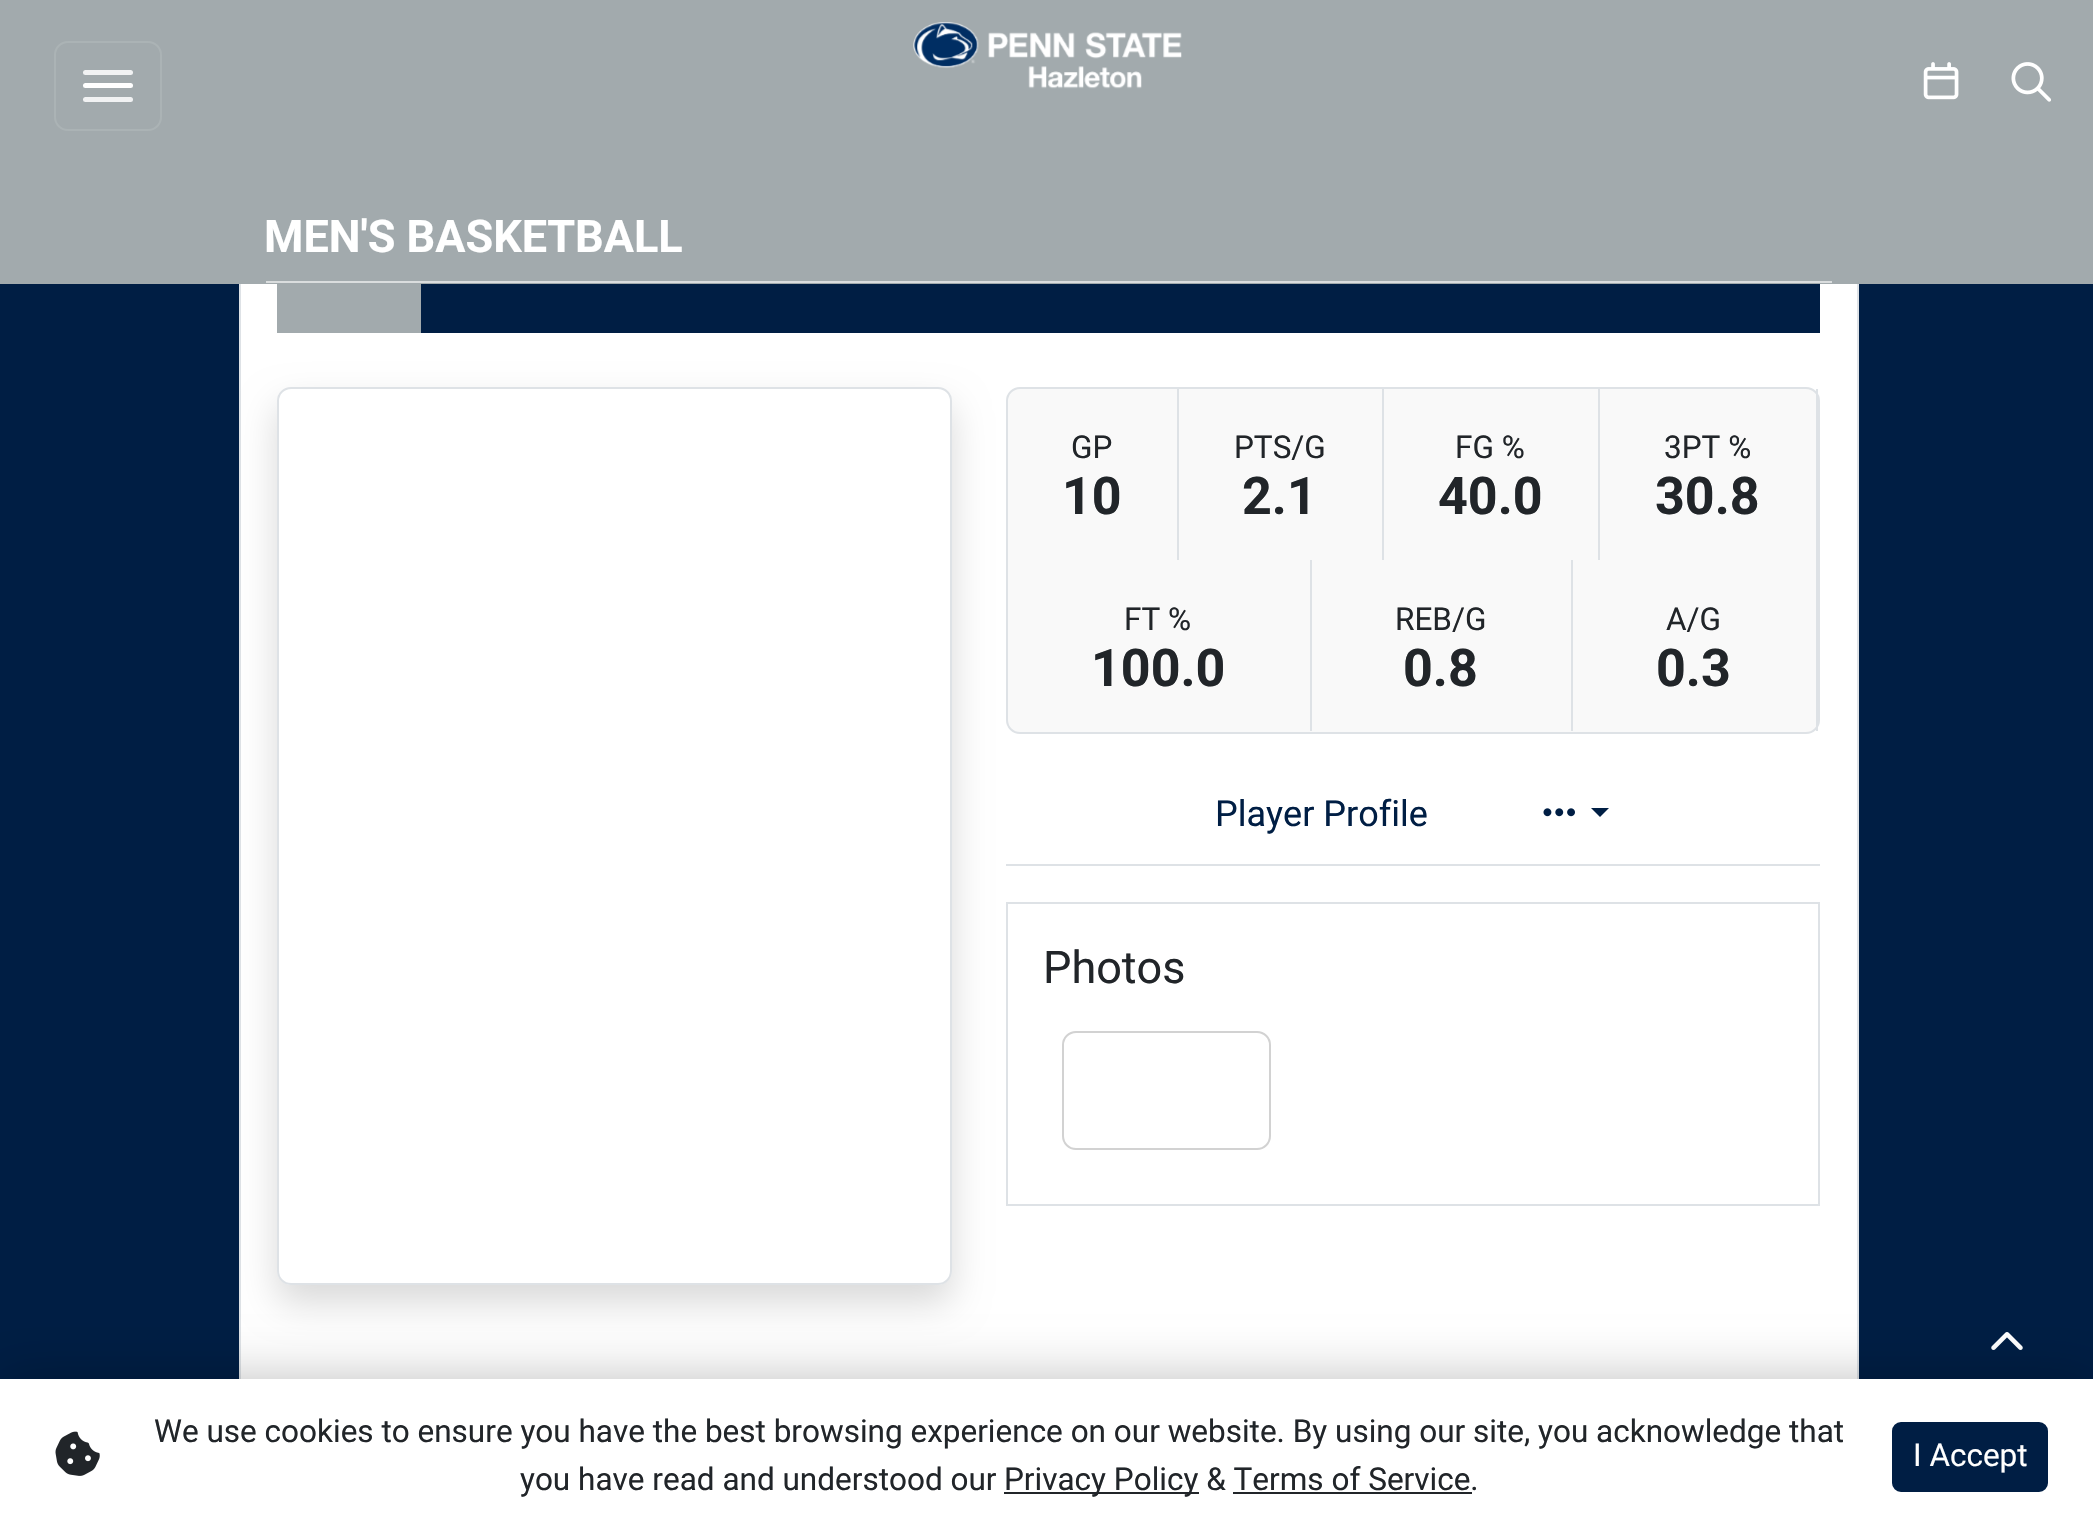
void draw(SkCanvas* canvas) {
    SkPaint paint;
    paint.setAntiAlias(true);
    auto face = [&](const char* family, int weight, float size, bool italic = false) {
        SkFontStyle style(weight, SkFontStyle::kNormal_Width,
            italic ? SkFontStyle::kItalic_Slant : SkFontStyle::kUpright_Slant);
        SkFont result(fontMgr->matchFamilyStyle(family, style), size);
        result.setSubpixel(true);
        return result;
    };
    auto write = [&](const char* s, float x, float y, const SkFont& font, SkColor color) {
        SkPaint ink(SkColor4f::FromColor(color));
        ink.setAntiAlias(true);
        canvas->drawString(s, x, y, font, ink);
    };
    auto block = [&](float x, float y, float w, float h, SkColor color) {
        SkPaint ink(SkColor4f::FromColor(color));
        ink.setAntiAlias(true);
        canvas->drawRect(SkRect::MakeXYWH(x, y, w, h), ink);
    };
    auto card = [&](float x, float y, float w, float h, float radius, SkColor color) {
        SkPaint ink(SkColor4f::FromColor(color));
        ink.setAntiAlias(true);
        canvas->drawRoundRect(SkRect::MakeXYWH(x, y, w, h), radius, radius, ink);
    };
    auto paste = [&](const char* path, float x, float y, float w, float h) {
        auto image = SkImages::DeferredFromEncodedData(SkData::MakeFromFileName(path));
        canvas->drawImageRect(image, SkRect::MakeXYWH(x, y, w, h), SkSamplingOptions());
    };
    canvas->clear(SkColorSetRGB(0, 30, 68));
    block(241, 284, 1616, 1095, SK_ColorWHITE);
    paint.setStyle(SkPaint::kStroke_Style);
    paint.setStrokeWidth(2);
    paint.setColor(SkColorSetRGB(222, 226, 230));
    canvas->drawRect(SkRect::MakeXYWH(240, 152, 1618, 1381), paint);
    block(0, 0, 2093, 284, SkColorSetRGB(162, 170, 173));
    paint.setColor(SkColorSetRGB(171, 179, 181));
    canvas->drawRoundRect(SkRect::MakeXYWH(55, 42, 106, 88), 13, 13, paint);
    card(83, 70, 50, 5, 2.5f, SkColorSetRGB(241, 242, 243));
    card(83, 83, 50, 5, 2.5f, SK_ColorWHITE);
    card(83, 97, 50, 5, 2.5f, SkColorSetRGB(241, 242, 243));
    paste("pic1.png", 913, 22, 269, 67);
    paste("pic2.png", 1923, 62, 36, 38);
    paste("pic3.png", 2011, 62, 40, 40);
    block(266, 281, 1566, 2, SkColorSetRGB(218, 221, 222));
    auto kFont1 = face("Roboto", 700, 45);
    write("MEN'S BASKETBALL", 264, 252, kFont1, SK_ColorWHITE);
    block(421, 284, 1399, 49, SkColorSetRGB(0, 30, 68));
    block(277, 284, 144, 49, SkColorSetRGB(162, 170, 173));
    paint.setStyle(SkPaint::kFill_Style);
    paint.setColor(SkColorSetRGB(249, 249, 249));
    canvas->drawRoundRect(SkRect::MakeXYWH(1007, 388, 812, 345), 13, 13, paint);
    paint.setStyle(SkPaint::kStroke_Style);
    paint.setColor(SkColorSetRGB(222, 226, 230));
    canvas->drawRoundRect(SkRect::MakeXYWH(1007, 388, 812, 345), 13, 13, paint);
    block(1006, 864, 814, 2, SkColorSetRGB(222, 226, 230));
    canvas->drawRect(SkRect::MakeXYWH(1007, 903, 812, 302), paint);
    canvas->save();
    canvas->clipPath(SkPathBuilder(SkPathFillType::kEvenOdd).moveTo(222, 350).lineTo(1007, 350).lineTo(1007, 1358).lineTo(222, 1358).close().moveTo(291, 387).lineTo(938, 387).cubicTo(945.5f, 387, 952, 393.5f, 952, 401).lineTo(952, 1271).cubicTo(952, 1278.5f, 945.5f, 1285, 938, 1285).lineTo(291, 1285).cubicTo(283.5f, 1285, 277, 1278.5f, 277, 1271).lineTo(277, 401).cubicTo(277, 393.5f, 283.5f, 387, 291, 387).close().detach(), true);
    paint.setStyle(SkPaint::kFill_Style);
    paint.setColor(SkColorSetARGB(38, 0, 0, 0));
    paint.setMaskFilter(SkMaskFilter::MakeBlur(kNormal_SkBlurStyle, 18));
    canvas->drawRoundRect(SkRect::MakeXYWH(277, 405, 675, 898), 14, 14, paint);
    paint.setMaskFilter(nullptr);
    canvas->restore();
    paint.setStyle(SkPaint::kStroke_Style);
    paint.setColor(SkColorSetRGB(222, 226, 230));
    canvas->drawRoundRect(SkRect::MakeXYWH(278, 388, 673, 896), 13, 13, paint);
    block(1177, 389, 2, 171, SkColorSetRGB(222, 226, 230));
    auto kFont2 = face("Roboto", 400, 31.5f);
    write("GP", 1071, 458, kFont2, SkColorSetRGB(33, 37, 41));
    auto kFont3 = face("Roboto", 700, 52);
    write("10", 1062, 514, kFont3, SkColorSetRGB(33, 37, 41));
    block(1382, 389, 2, 171, SkColorSetRGB(222, 226, 230));
    write("PTS/G", 1234, 458, kFont2, SkColorSetRGB(33, 37, 41));
    write("2.1", 1242, 514, kFont3, SkColorSetRGB(33, 37, 41));
    block(1598, 389, 2, 171, SkColorSetRGB(222, 226, 230));
    write("FG %", 1455, 458, kFont2, SkColorSetRGB(33, 37, 41));
    write("40.0", 1438, 514, kFont3, SkColorSetRGB(33, 37, 41));
    block(1816, 389, 2, 342, SkColorSetRGB(222, 226, 230));
    write("3PT %", 1664, 458, kFont2, SkColorSetRGB(33, 37, 41));
    write("30.8", 1655, 514, kFont3, SkColorSetRGB(33, 37, 41));
    block(1310, 560, 2, 171, SkColorSetRGB(222, 226, 230));
    write("FT %", 1124, 630, kFont2, SkColorSetRGB(33, 37, 41));
    write("100.0", 1091, 686, kFont3, SkColorSetRGB(33, 37, 41));
    block(1571, 560, 2, 171, SkColorSetRGB(222, 226, 230));
    write("REB/G", 1395, 630, kFont2, SkColorSetRGB(33, 37, 41));
    write("0.8", 1403, 686, kFont3, SkColorSetRGB(33, 37, 41));
    write("A/G", 1666, 630, kFont2, SkColorSetRGB(33, 37, 41));
    write("0.3", 1656, 686, kFont3, SkColorSetRGB(33, 37, 41));
    auto kFont4 = face("Roboto", 400, 36);
    write("Player Profile", 1215, 826, kFont4, SkColorSetRGB(0, 30, 68));
    paste("pic4.png", 1543, 808, 32, 9);
    paint.setStyle(SkPaint::kFill_Style);
    paint.setColor(SkColorSetRGB(0, 30, 68));
    canvas->drawPath(SkPathBuilder().moveTo(1591, 808).lineTo(1609, 808).lineTo(1600, 817).close().detach(), paint);
    auto kFont5 = face("Roboto", 400, 45);
    write("Photos", 1043, 983, kFont5, SkColorSetRGB(33, 37, 41));
    paint.setStyle(SkPaint::kStroke_Style);
    paint.setColor(SkColorSetRGB(210, 210, 210));
    canvas->drawRoundRect(SkRect::MakeXYWH(1063, 1032, 207, 117), 13, 13, paint);
    paste("pic5.png", 1991, 1332, 32, 18);
    paint.setStyle(SkPaint::kFill_Style);
    paint.setColor(SkColorSetARGB(64, 0, 0, 0));
    paint.setMaskFilter(SkMaskFilter::MakeBlur(kNormal_SkBlurStyle, 27));
    canvas->drawRect(SkRect::MakeXYWH(0, 1379, 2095, 153), paint);
    paint.setMaskFilter(nullptr);
    block(0, 1379, 2093, 153, SK_ColorWHITE);
    paste("pic6.png", 55, 1431, 45, 45);
    write("We use cookies to ensure you have the best browsing experience on our website. By using our site, you acknowledge that", 154, 1442, kFont2, SkColorSetRGB(33, 37, 41));
    write("you have read and understood our", 520, 1490, kFont2, SkColorSetRGB(33, 37, 41));
    block(1004, 1492, 195, 2, SkColorSetRGB(33, 37, 41));
    write("Privacy Policy & Terms of Service.", 1004, 1490, kFont2, SkColorSetRGB(33, 37, 41));
    block(1233, 1492, 239, 2, SkColorSetRGB(33, 37, 41));
    paint.setColor(SkColorSetRGB(0, 30, 68));
    canvas->drawRoundRect(SkRect::MakeXYWH(1893, 1423, 154, 68), 8, 8, paint);
    paint.setStyle(SkPaint::kStroke_Style);
    canvas->drawRoundRect(SkRect::MakeXYWH(1893, 1423, 154, 68), 8, 8, paint);
    write("I Accept", 1913, 1466, kFont2, SK_ColorWHITE);
}
